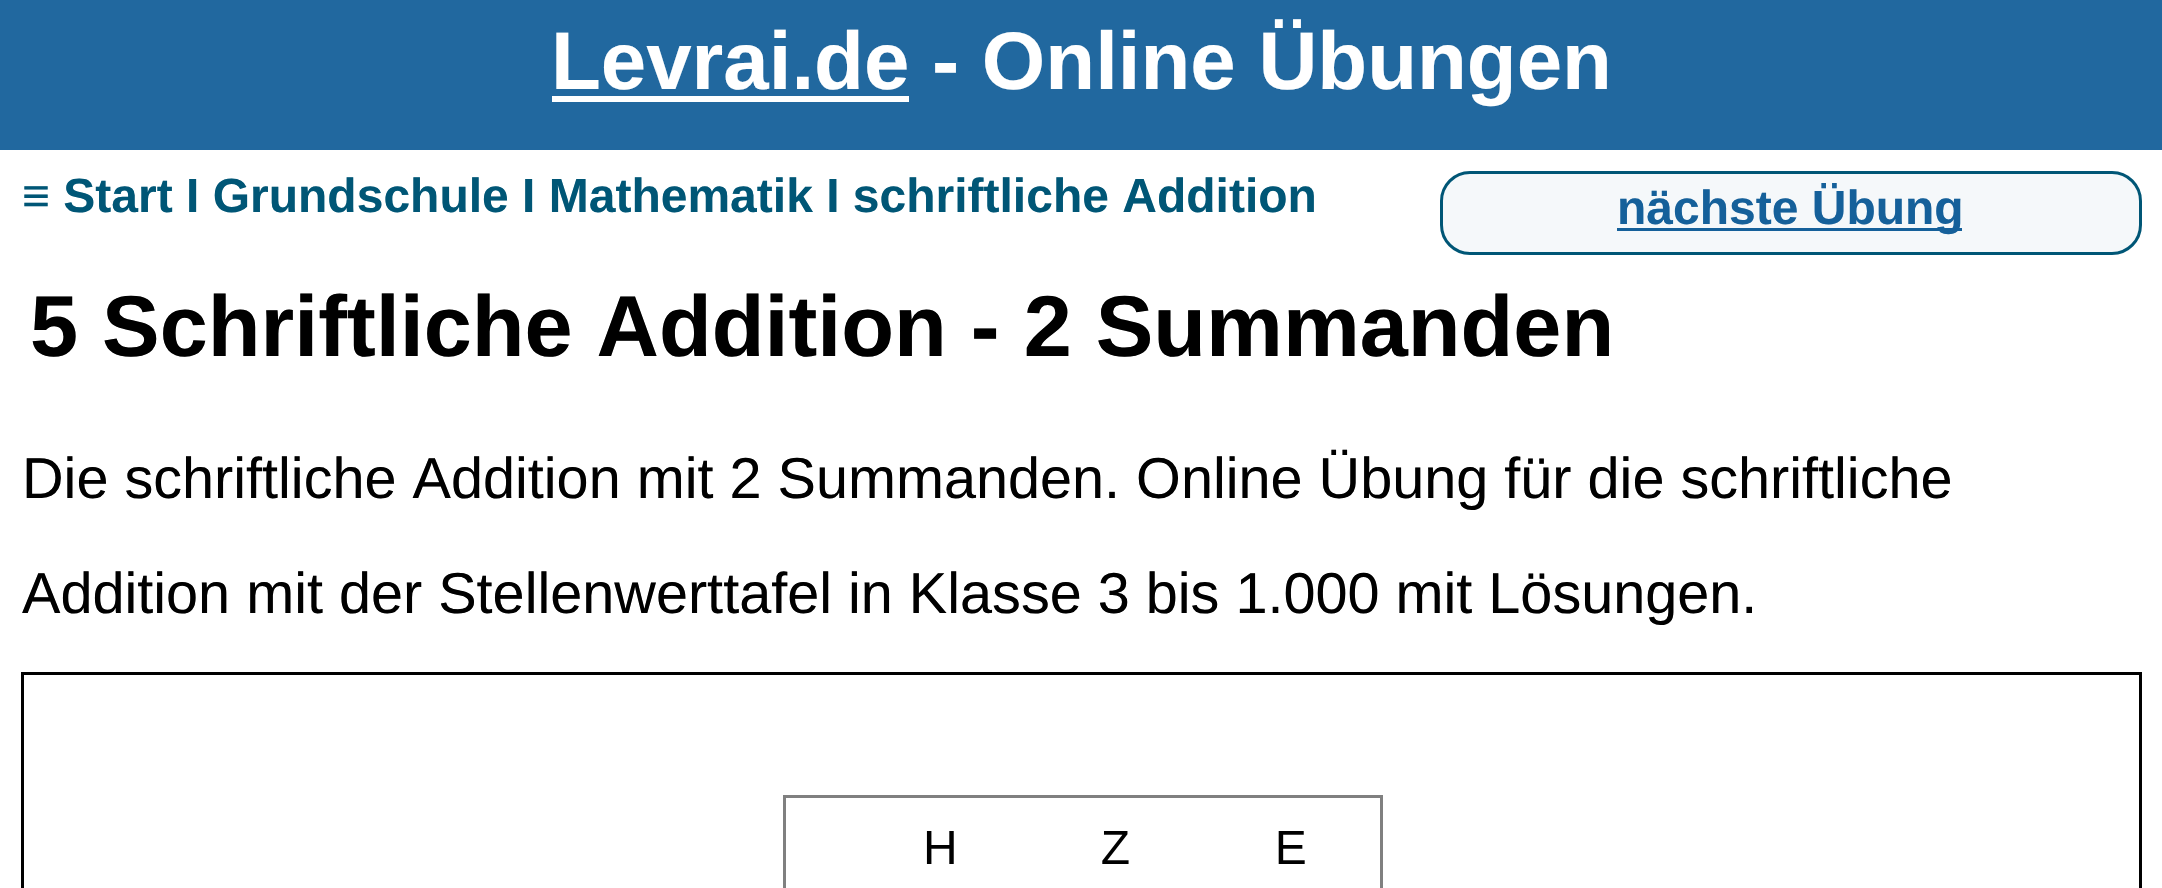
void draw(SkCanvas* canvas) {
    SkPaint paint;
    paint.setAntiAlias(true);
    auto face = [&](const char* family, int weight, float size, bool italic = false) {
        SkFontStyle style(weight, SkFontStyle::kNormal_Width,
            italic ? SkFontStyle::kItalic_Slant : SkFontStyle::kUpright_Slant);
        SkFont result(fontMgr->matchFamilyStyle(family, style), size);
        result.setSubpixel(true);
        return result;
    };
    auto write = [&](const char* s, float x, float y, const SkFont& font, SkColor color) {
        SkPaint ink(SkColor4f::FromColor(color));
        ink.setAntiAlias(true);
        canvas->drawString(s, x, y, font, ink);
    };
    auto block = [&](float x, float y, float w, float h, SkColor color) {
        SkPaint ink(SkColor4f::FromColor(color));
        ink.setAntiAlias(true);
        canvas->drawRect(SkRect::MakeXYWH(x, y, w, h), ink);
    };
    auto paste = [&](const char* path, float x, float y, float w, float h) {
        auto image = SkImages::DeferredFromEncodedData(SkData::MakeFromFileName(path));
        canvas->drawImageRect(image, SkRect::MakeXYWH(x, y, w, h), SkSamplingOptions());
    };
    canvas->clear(SK_ColorWHITE);
    block(0, 0, 2162, 150, SkColorSetRGB(33, 104, 159));
    block(552, 96, 357, 6, SK_ColorWHITE);
    auto kFont1 = face("Liberation Sans", 700, 81.6f);
    write("Levrai.de - Online Übungen", 551, 89, kFont1, SK_ColorWHITE);
    auto kFont2 = face("Liberation Sans", 700, 48);
    write("≡ Start I Grundschule I Mathematik I schriftliche Addition", 22, 212, kFont2, SkColorSetRGB(0, 86, 118));
    paint.setColor(SkColorSetRGB(245, 248, 250));
    canvas->drawRoundRect(SkRect::MakeXYWH(1441.5f, 172.5f, 699, 81), 28.5f, 28.5f, paint);
    paint.setStyle(SkPaint::kStroke_Style);
    paint.setStrokeWidth(3);
    paint.setColor(SkColorSetRGB(0, 86, 118));
    canvas->drawRoundRect(SkRect::MakeXYWH(1441.5f, 172.5f, 699, 81), 28.5f, 28.5f, paint);
    block(1617, 228, 345, 3, SkColorSetRGB(21, 96, 154));
    write("nächste Übung", 1617, 224, kFont2, SkColorSetRGB(21, 96, 154));
    auto kFont3 = face("Liberation Sans", 700, 86.4f);
    write("5 Schriftliche Addition - 2 Summanden", 30, 356, kFont3, SK_ColorBLACK);
    auto kFont4 = face("Liberation Sans", 400, 57.6f);
    write("Die schriftliche Addition mit 2 Summanden. Online Übung für die schriftliche", 22, 498, kFont4, SK_ColorBLACK);
    write("Addition mit der Stellenwerttafel in Klasse 3 bis 1.000 mit Lösungen.", 22, 613, kFont4, SK_ColorBLACK);
    paste("pic1.png", 21, 672, 2121, 216);
}
